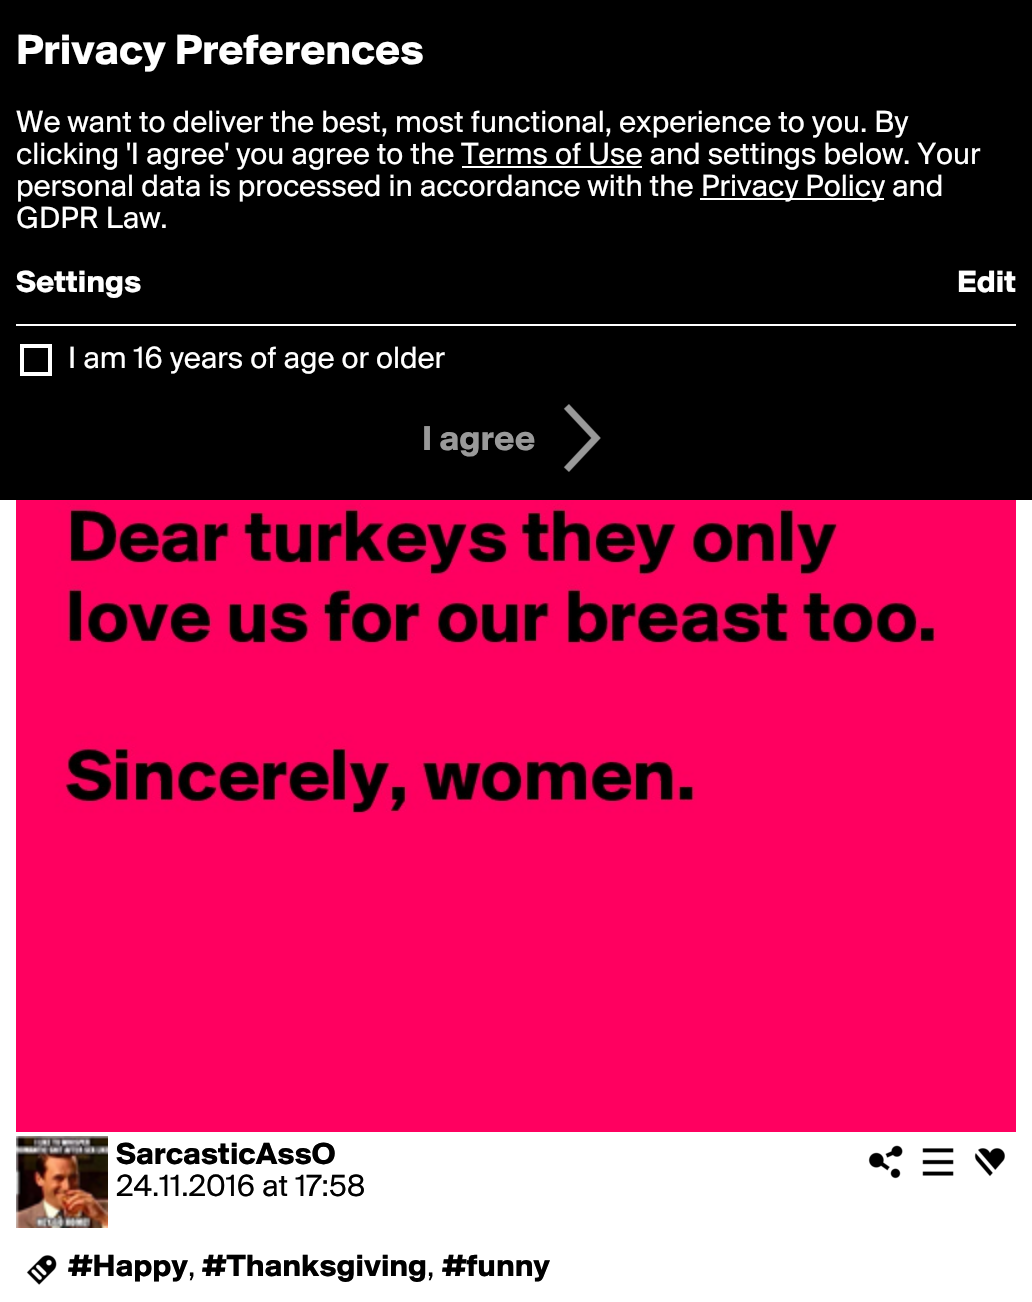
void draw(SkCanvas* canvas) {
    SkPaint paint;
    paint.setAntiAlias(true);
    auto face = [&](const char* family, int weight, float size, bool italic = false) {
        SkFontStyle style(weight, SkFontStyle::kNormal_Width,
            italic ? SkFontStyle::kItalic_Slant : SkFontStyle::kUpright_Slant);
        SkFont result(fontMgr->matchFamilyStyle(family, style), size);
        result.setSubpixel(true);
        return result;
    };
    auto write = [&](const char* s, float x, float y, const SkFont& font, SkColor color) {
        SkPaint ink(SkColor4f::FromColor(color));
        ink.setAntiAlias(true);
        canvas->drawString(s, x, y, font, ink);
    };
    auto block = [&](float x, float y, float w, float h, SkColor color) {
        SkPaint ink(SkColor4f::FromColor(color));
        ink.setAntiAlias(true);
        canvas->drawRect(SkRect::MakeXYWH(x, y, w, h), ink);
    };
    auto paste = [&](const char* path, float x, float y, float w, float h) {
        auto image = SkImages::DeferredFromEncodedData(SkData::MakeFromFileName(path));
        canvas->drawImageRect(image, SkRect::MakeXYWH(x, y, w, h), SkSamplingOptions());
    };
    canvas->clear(SK_ColorWHITE);
    block(0, 0, 1032, 500, SK_ColorBLACK);
    auto kFont1 = face("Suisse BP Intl", 700, 44);
    write("Privacy Preferences", 16, 64, kFont1, SK_ColorWHITE);
    auto kFont2 = face("Suisse BP Intl", 400, 32);
    write("We want to deliver the best, most functional, experience to you. By", 16, 132, kFont2, SK_ColorWHITE);
    write("clicking 'I agree' you agree to the Terms of Use and settings below. Your", 16, 164, kFont2, SK_ColorWHITE);
    block(462, 166, 180, 2, SK_ColorWHITE);
    write("personal data is processed in accordance with the", 16, 196, kFont2, SK_ColorWHITE);
    block(700, 198, 184, 2, SK_ColorWHITE);
    write("Privacy Policy and", 701, 196, kFont2, SK_ColorWHITE);
    write("GDPR Law.", 16, 228, kFont2, SK_ColorWHITE);
    auto kFont3 = face("Suisse BP Intl", 700, 32);
    write("Settings", 16, 292, kFont3, SK_ColorWHITE);
    write("Edit", 957, 292, kFont3, SK_ColorWHITE);
    block(16, 324, 1000, 2, SK_ColorWHITE);
    paint.setStyle(SkPaint::kStroke_Style);
    paint.setStrokeWidth(4);
    paint.setColor(SK_ColorWHITE);
    canvas->drawRect(SkRect::MakeXYWH(22, 346, 28, 28), paint);
    write("I am 16 years of age or older", 68, 368, kFont2, SK_ColorWHITE);
    auto kFont4 = face("Suisse BP Intl", 700, 36);
    write("I agree", 422, 450, kFont4, SkColorSetRGB(153, 153, 153));
    paste("pic1.png", 563, 404, 38, 68);
    paste("pic2.png", 16, 500, 1000, 632);
    paste("pic3.png", 16, 1136, 92, 92);
    write("SarcasticAssO", 116, 1164, kFont3, SK_ColorBLACK);
    write("24.11.2016 at 17:58", 116, 1196, kFont2, SK_ColorBLACK);
    paste("pic4.png", 868, 1145, 35, 34);
    paste("pic5.png", 922, 1148, 32, 28);
    paste("pic6.png", 974, 1148, 31, 29);
    paste("pic7.png", 26, 1255, 31, 30);
    write("#Happy", 68, 1276, kFont3, SK_ColorBLACK);
    write(",", 188, 1276, kFont2, SK_ColorBLACK);
    write("#Thanksgiving", 202, 1276, kFont3, SK_ColorBLACK);
    write(",", 427, 1276, kFont2, SK_ColorBLACK);
    write("#funny", 442, 1276, kFont3, SK_ColorBLACK);
}
